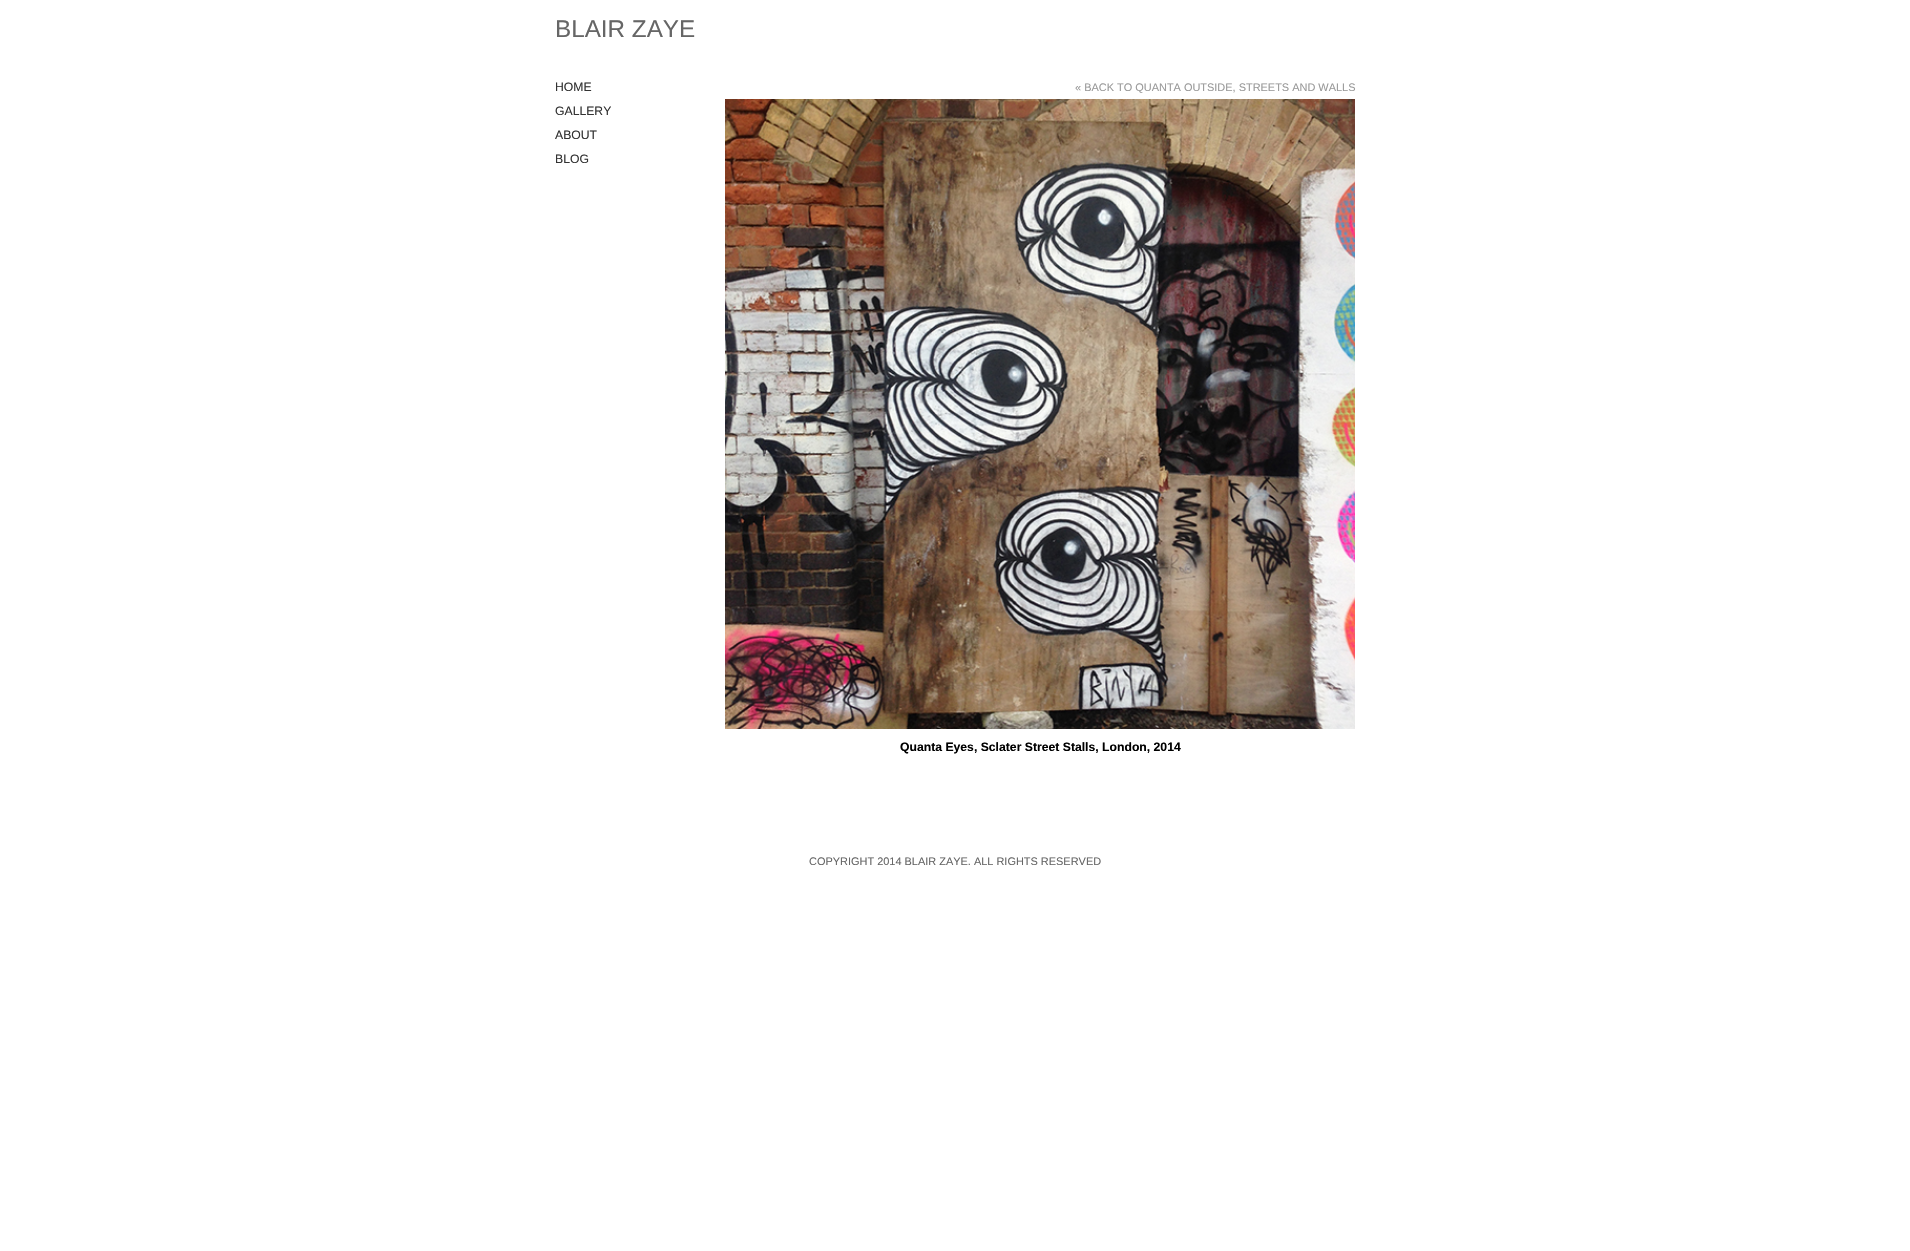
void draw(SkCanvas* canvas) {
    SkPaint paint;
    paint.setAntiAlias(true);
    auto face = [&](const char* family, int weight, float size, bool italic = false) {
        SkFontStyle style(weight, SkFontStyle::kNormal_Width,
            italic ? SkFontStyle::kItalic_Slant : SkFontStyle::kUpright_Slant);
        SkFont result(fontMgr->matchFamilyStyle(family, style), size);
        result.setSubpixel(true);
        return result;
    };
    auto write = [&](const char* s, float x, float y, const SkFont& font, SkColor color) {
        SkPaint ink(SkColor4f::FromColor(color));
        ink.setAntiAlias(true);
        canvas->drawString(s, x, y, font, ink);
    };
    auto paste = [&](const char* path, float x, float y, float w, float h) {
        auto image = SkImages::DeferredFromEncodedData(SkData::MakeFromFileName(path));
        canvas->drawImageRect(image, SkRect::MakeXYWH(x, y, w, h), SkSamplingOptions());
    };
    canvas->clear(SK_ColorWHITE);
    auto kFont1 = face("Liberation Sans", 400, 24.25f);
    write("BLAIR ZAYE", 555, 37, kFont1, SkColorSetRGB(102, 102, 102));
    auto kFont2 = face("Liberation Sans", 400, 12.2f);
    write("HOME", 555, 91, kFont2, SkColorSetRGB(51, 51, 51));
    write("GALLERY", 555, 115, kFont2, SkColorSetRGB(51, 51, 51));
    write("ABOUT", 555, 139, kFont2, SkColorSetRGB(51, 51, 51));
    write("BLOG", 555, 163, kFont2, SkColorSetRGB(51, 51, 51));
    auto kFont3 = face("Liberation Sans", 400, 10.95f);
    write("« BACK TO QUANTA OUTSIDE, STREETS AND WALLS", 1075, 91, kFont3, SkColorSetRGB(153, 153, 153));
    paste("pic1.png", 725, 99, 630, 630);
    auto kFont4 = face("Liberation Sans", 700, 12.2f);
    write("Quanta Eyes, Sclater Street Stalls, London, 2014", 900, 751, kFont4, SK_ColorBLACK);
    write("COPYRIGHT 2014 BLAIR ZAYE. ALL RIGHTS RESERVED", 809, 865, kFont3, SkColorSetRGB(102, 102, 102));
}
